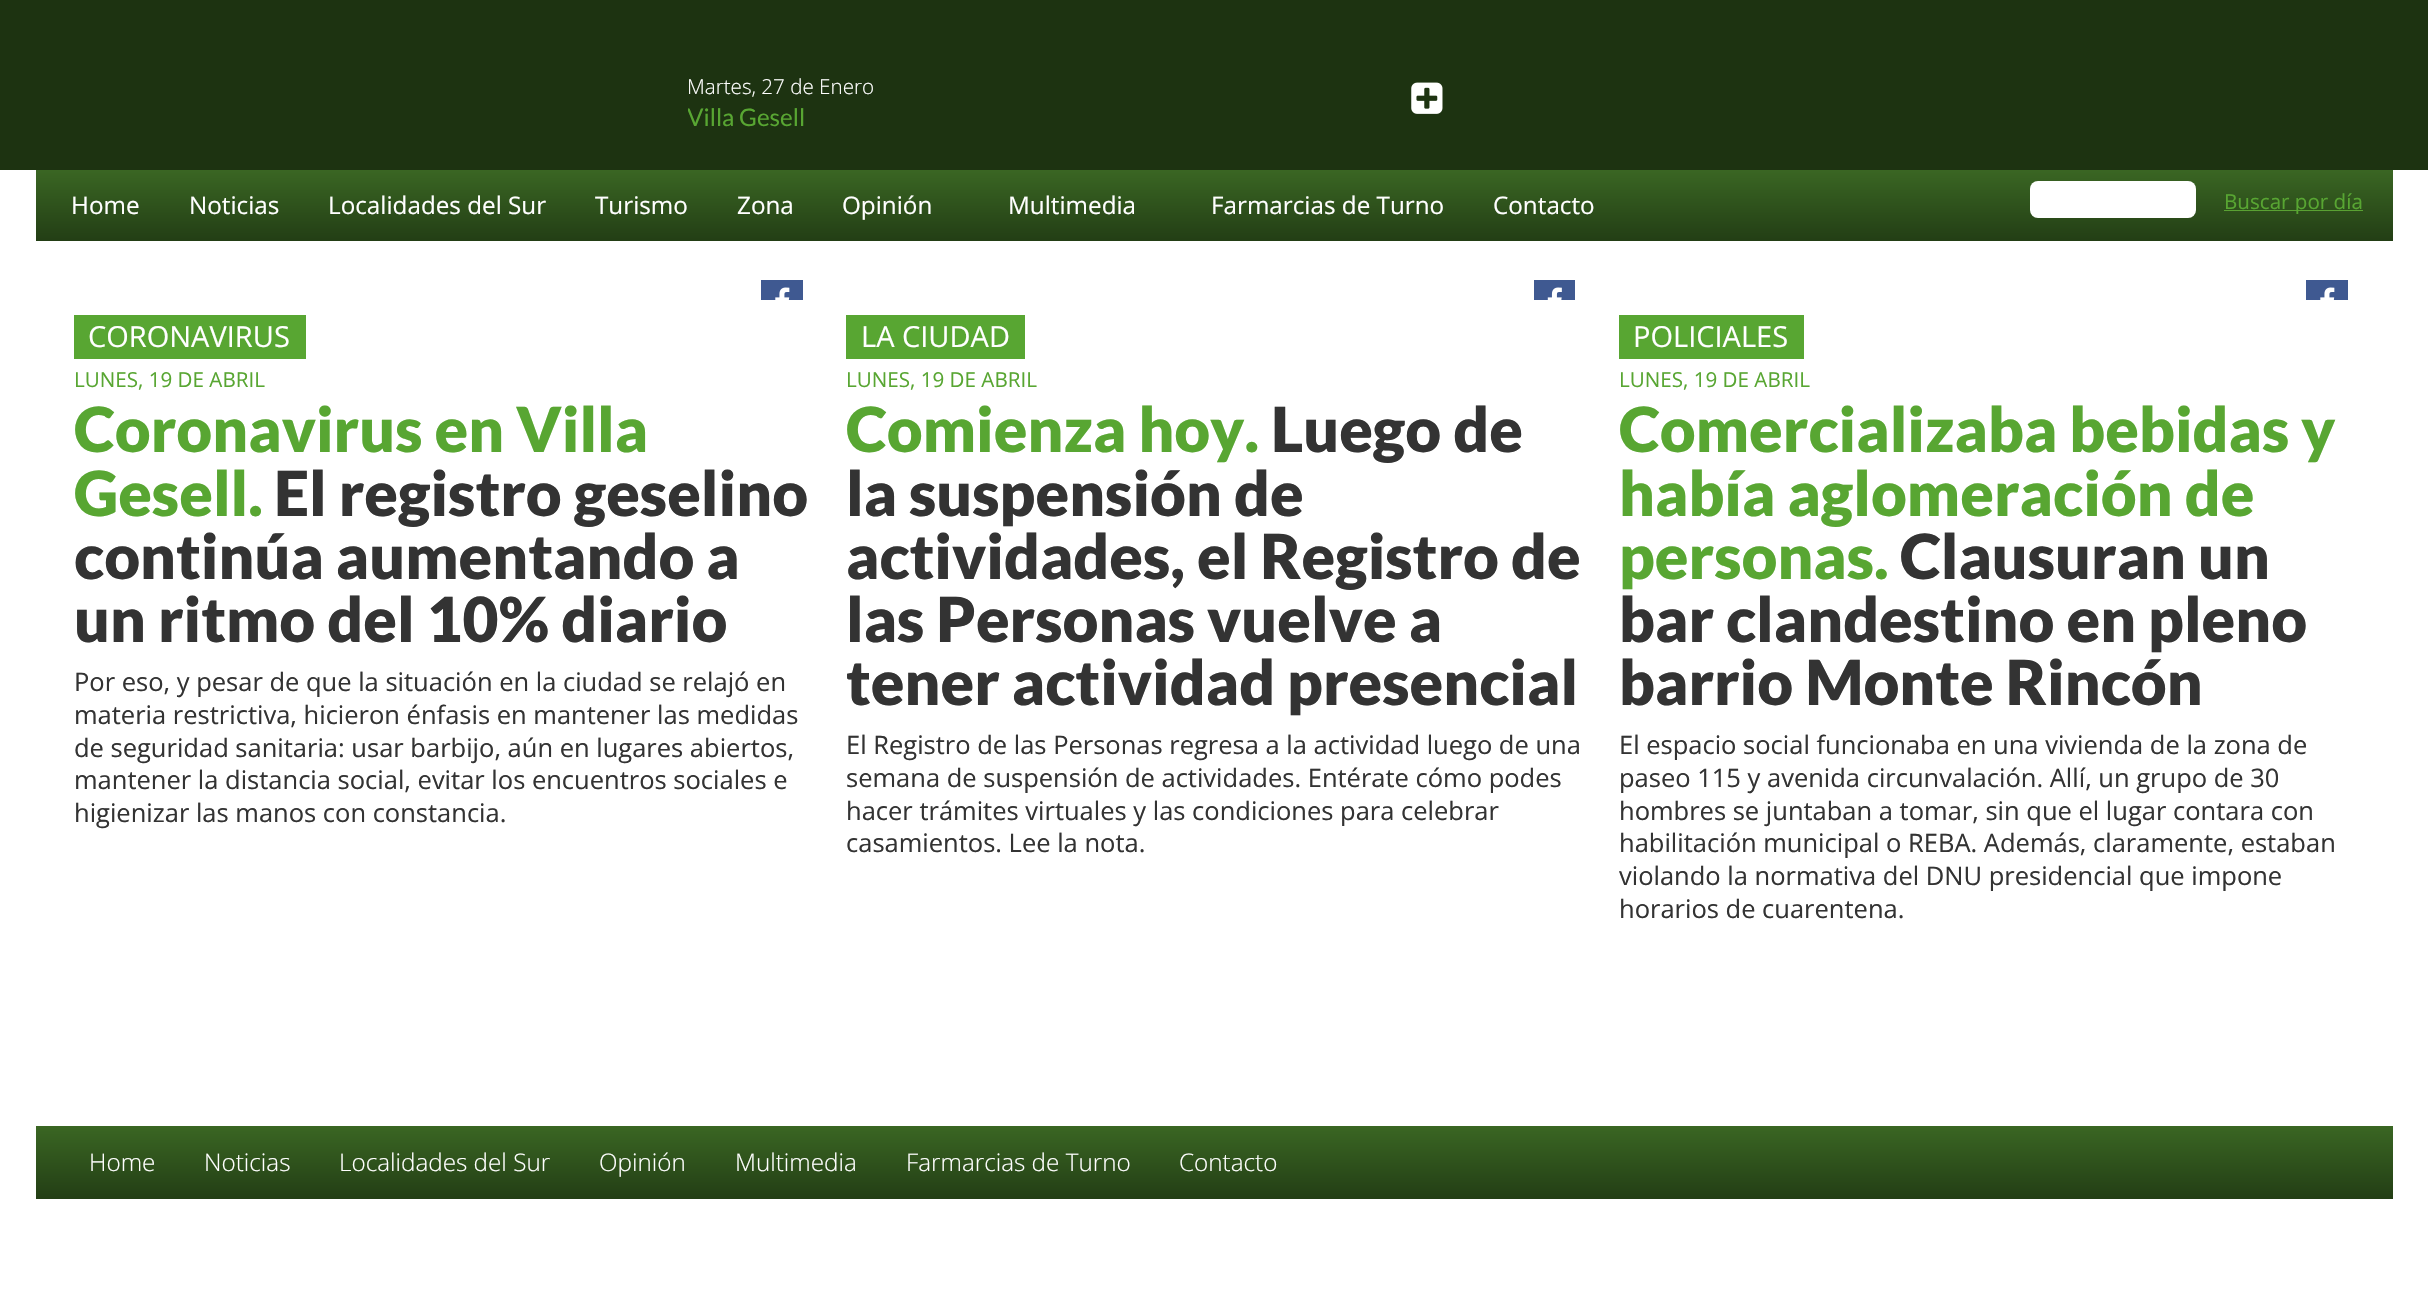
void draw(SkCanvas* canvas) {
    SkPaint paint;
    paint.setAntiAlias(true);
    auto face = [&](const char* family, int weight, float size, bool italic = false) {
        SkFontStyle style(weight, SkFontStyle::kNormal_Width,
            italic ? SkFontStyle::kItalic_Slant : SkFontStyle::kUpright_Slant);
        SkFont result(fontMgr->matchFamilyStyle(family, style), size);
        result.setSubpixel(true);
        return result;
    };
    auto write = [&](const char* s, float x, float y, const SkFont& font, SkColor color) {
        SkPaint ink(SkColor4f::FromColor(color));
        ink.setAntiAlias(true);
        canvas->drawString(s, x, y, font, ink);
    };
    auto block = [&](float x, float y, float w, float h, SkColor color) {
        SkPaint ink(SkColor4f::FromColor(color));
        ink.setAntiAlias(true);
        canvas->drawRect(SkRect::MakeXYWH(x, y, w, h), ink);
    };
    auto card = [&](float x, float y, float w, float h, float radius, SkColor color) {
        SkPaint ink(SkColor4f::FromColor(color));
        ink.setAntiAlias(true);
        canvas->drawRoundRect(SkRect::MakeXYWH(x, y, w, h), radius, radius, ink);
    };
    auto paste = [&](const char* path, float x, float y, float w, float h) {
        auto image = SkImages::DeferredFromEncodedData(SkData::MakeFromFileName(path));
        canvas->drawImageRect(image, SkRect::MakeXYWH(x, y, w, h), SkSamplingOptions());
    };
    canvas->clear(SK_ColorWHITE);
    block(0, 0, 2428, 170, SkColorSetRGB(29, 51, 17));
    auto kFont1 = face("Open Sans", 300, 20.6f);
    write("Martes, 27 de Enero", 687, 94, kFont1, SK_ColorWHITE);
    canvas->save();
    canvas->clipRect(SkRect::MakeXYWH(688, 53, 803, 87));
    auto kFont2 = face("Lato", 400, 24.25f);
    write("Villa Gesell", 687, 126, kFont2, SkColorSetRGB(88, 166, 50));
    canvas->restore();
    paste("pic1.png", 1411, 82, 32, 32);
    {
        const SkColor colors[] = {SkColorSetRGB(35, 62, 21), SkColorSetRGB(58, 102, 35)};
        const float stops[] = {0, 1};
        const SkPoint ends[] = {{1214, 241}, {1214, 170}};
        paint.setShader(SkGradientShader::MakeLinear(ends, colors, stops, 2, SkTileMode::kClamp));
        paint.setAlpha(255);
    }
    canvas->drawRect(SkRect::MakeXYWH(36, 170, 2357, 71), paint);
    auto kFont3 = face("Open Sans", 400, 24.25f);
    write("Home", 71, 214, kFont3, SK_ColorWHITE);
    write("Noticias", 189, 214, kFont3, SK_ColorWHITE);
    write("Localidades del Sur", 328, 214, kFont3, SK_ColorWHITE);
    write("Turismo", 595, 214, kFont3, SK_ColorWHITE);
    write("Zona", 737, 214, kFont3, SK_ColorWHITE);
    write("Opinión", 842, 214, kFont3, SK_ColorWHITE);
    write("Multimedia", 1008, 214, kFont3, SK_ColorWHITE);
    write("Farmarcias de Turno", 1211, 214, kFont3, SK_ColorWHITE);
    write("Contacto", 1493, 214, kFont3, SK_ColorWHITE);
    card(2030, 181, 166, 37, 8, SK_ColorWHITE);
    block(2224, 210, 139, 1, SkColorSetRGB(90, 161, 51));
    auto kFont4 = face("Open Sans", 400, 20.6f);
    write("Buscar por día", 2224, 209, kFont4, SkColorSetRGB(88, 166, 50));
    block(761, 280, 42, 20, SkColorSetRGB(63, 89, 145));
    paste("pic2.png", 775, 287, 15, 13);
    block(74, 315, 232, 44, SkColorSetRGB(88, 166, 50));
    auto kFont5 = face("Open Sans", 400, 29);
    write("CORONAVIRUS", 88, 347, kFont5, SK_ColorWHITE);
    write("LUNES, 19 DE ABRIL", 74, 387, kFont4, SkColorSetRGB(88, 166, 50));
    auto kFont6 = face("Lato", 900, 62);
    write("Coronavirus en Villa", 74, 452, kFont6, SkColorSetRGB(88, 166, 50));
    write("Gesell.", 74, 516, kFont6, SkColorSetRGB(88, 166, 50));
    write("El registro geselino", 274, 516, kFont6, SkColorSetRGB(51, 51, 51));
    write("continúa aumentando a", 74, 579, kFont6, SkColorSetRGB(51, 51, 51));
    write("un ritmo del 10% diario", 74, 642, kFont6, SkColorSetRGB(51, 51, 51));
    auto kFont7 = face("Open Sans", 400, 25.5f);
    write("Por eso, y pesar de que la situación en la ciudad se relajó en", 74, 691, kFont7, SkColorSetRGB(51, 51, 51));
    write("materia restrictiva, hicieron énfasis en mantener las medidas", 74, 724, kFont7, SkColorSetRGB(51, 51, 51));
    write("de seguridad sanitaria: usar barbijo, aún en lugares abiertos,", 74, 757, kFont7, SkColorSetRGB(51, 51, 51));
    write("mantener la distancia social, evitar los encuentros sociales e", 74, 789, kFont7, SkColorSetRGB(51, 51, 51));
    write("higienizar las manos con constancia.", 74, 822, kFont7, SkColorSetRGB(51, 51, 51));
    block(1534, 280, 41, 20, SkColorSetRGB(63, 89, 145));
    paste("pic3.png", 1547, 287, 15, 13);
    block(846, 315, 179, 44, SkColorSetRGB(88, 166, 50));
    write("LA CIUDAD", 861, 347, kFont5, SK_ColorWHITE);
    write("LUNES, 19 DE ABRIL", 846, 387, kFont4, SkColorSetRGB(88, 166, 50));
    write("Comienza hoy.", 846, 452, kFont6, SkColorSetRGB(88, 166, 50));
    write("Luego de", 1271, 452, kFont6, SkColorSetRGB(51, 51, 51));
    write("la suspensión de", 846, 516, kFont6, SkColorSetRGB(51, 51, 51));
    write("actividades, el Registro de", 846, 579, kFont6, SkColorSetRGB(51, 51, 51));
    write("las Personas vuelve a", 846, 642, kFont6, SkColorSetRGB(51, 51, 51));
    write("tener actividad presencial", 846, 705, kFont6, SkColorSetRGB(51, 51, 51));
    write("El Registro de las Personas regresa a la actividad luego de una", 846, 754, kFont7, SkColorSetRGB(51, 51, 51));
    write("semana de suspensión de actividades. Entérate cómo podes", 846, 787, kFont7, SkColorSetRGB(51, 51, 51));
    write("hacer trámites virtuales y las condiciones para celebrar", 846, 820, kFont7, SkColorSetRGB(51, 51, 51));
    write("casamientos. Lee la nota.", 846, 852, kFont7, SkColorSetRGB(51, 51, 51));
    block(2306, 280, 42, 20, SkColorSetRGB(63, 89, 145));
    paste("pic2.png", 2320, 287, 15, 13);
    block(1619, 315, 185, 44, SkColorSetRGB(88, 166, 50));
    write("POLICIALES", 1633, 347, kFont5, SK_ColorWHITE);
    write("LUNES, 19 DE ABRIL", 1619, 387, kFont4, SkColorSetRGB(88, 166, 50));
    write("Comercializaba bebidas y", 1619, 452, kFont6, SkColorSetRGB(88, 166, 50));
    write("había aglomeración de", 1619, 516, kFont6, SkColorSetRGB(88, 166, 50));
    write("personas.", 1619, 579, kFont6, SkColorSetRGB(88, 166, 50));
    write("Clausuran un", 1900, 579, kFont6, SkColorSetRGB(51, 51, 51));
    write("bar clandestino en pleno", 1619, 642, kFont6, SkColorSetRGB(51, 51, 51));
    write("barrio Monte Rincón", 1619, 705, kFont6, SkColorSetRGB(51, 51, 51));
    write("El espacio social funcionaba en una vivienda de la zona de", 1619, 754, kFont7, SkColorSetRGB(51, 51, 51));
    write("paseo 115 y avenida circunvalación. Allí, un grupo de 30", 1619, 787, kFont7, SkColorSetRGB(51, 51, 51));
    write("hombres se juntaban a tomar, sin que el lugar contara con", 1619, 820, kFont7, SkColorSetRGB(51, 51, 51));
    write("habilitación municipal o REBA. Además, claramente, estaban", 1619, 852, kFont7, SkColorSetRGB(51, 51, 51));
    write("violando la normativa del DNU presidencial que impone", 1619, 885, kFont7, SkColorSetRGB(51, 51, 51));
    write("horarios de cuarentena.", 1619, 918, kFont7, SkColorSetRGB(51, 51, 51));
    {
        const SkColor colors[] = {SkColorSetRGB(35, 62, 21), SkColorSetRGB(58, 102, 35)};
        const float stops[] = {0, 1};
        const SkPoint ends[] = {{1214, 1199}, {1214, 1126}};
        paint.setShader(SkGradientShader::MakeLinear(ends, colors, stops, 2, SkTileMode::kClamp));
        paint.setAlpha(255);
    }
    canvas->drawRect(SkRect::MakeXYWH(36, 1126, 2357, 73), paint);
    auto kFont8 = face("Open Sans", 300, 24.25f);
    write("Home", 89, 1171, kFont8, SK_ColorWHITE);
    write("Noticias", 204, 1171, kFont8, SK_ColorWHITE);
    write("Localidades del Sur", 339, 1171, kFont8, SK_ColorWHITE);
    write("Opinión", 599, 1171, kFont8, SK_ColorWHITE);
    write("Multimedia", 735, 1171, kFont8, SK_ColorWHITE);
    write("Farmarcias de Turno", 906, 1171, kFont8, SK_ColorWHITE);
    write("Contacto", 1179, 1171, kFont8, SK_ColorWHITE);
}
